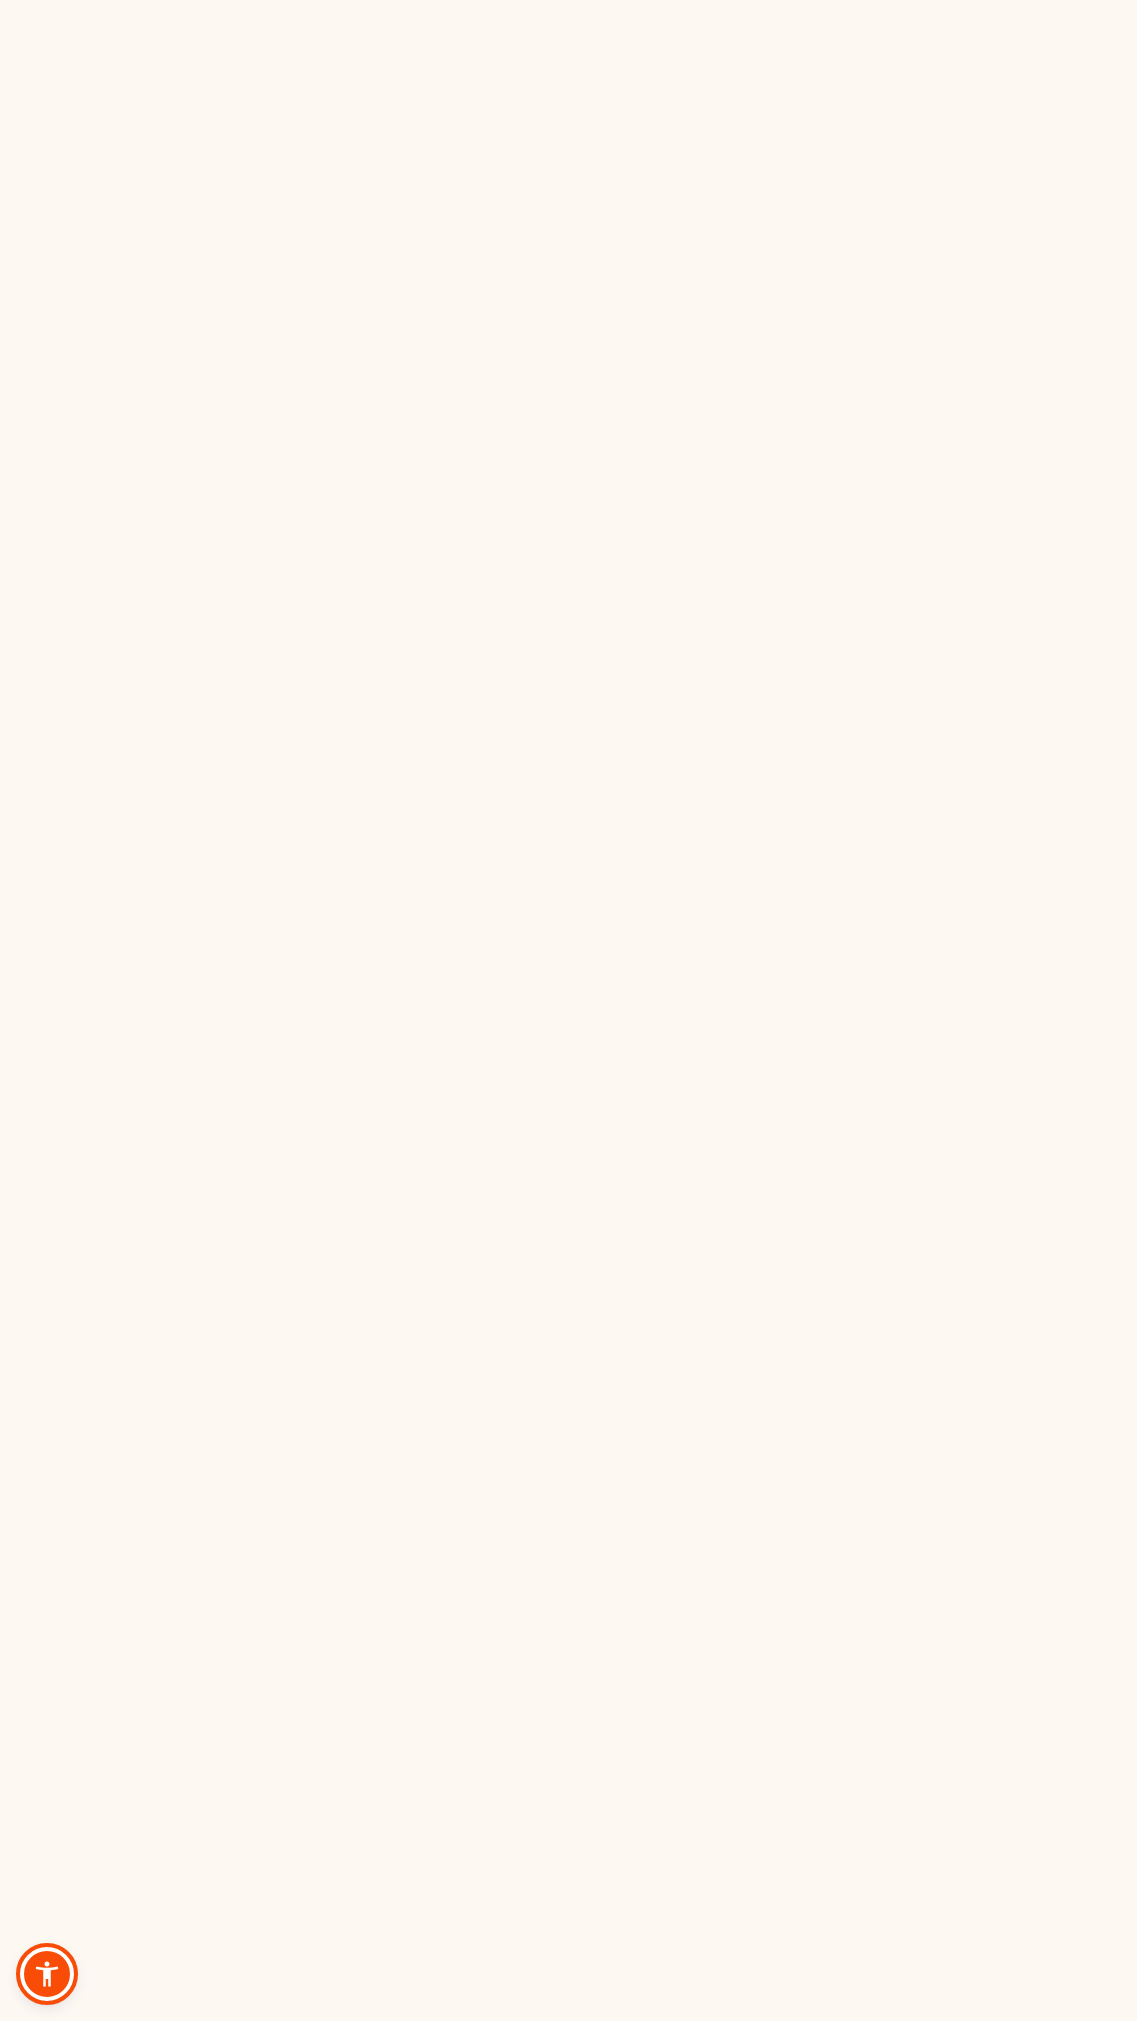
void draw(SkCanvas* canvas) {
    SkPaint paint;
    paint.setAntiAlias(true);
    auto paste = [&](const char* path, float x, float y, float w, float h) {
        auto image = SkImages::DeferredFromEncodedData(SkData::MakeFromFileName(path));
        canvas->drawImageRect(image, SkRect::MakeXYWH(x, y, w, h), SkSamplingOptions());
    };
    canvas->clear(SkColorSetRGB(253, 248, 242));
    paint.setColor(SkColorSetARGB(51, 93, 100, 148));
    paint.setMaskFilter(SkMaskFilter::MakeBlur(kNormal_SkBlurStyle, 2));
    canvas->drawRoundRect(SkRect::MakeXYWH(20, 1949, 54, 54), 27, 27, paint);
    paint.setMaskFilter(nullptr);
    paint.setColor(SkColorSetARGB(38, 37, 44, 97));
    paint.setMaskFilter(SkMaskFilter::MakeBlur(kNormal_SkBlurStyle, 7.5f));
    canvas->drawRoundRect(SkRect::MakeXYWH(20, 1952, 54, 54), 27, 27, paint);
    paint.setMaskFilter(nullptr);
    paint.setColor(SkColorSetRGB(249, 76, 7));
    canvas->drawCircle(47, 1974, 25, paint);
    paint.setStyle(SkPaint::kStroke_Style);
    paint.setStrokeWidth(4);
    paint.setColor(SK_ColorWHITE);
    canvas->drawCircle(47, 1974, 25, paint);
    paint.setColor(SkColorSetRGB(249, 76, 7));
    canvas->drawCircle(47, 1974, 29, paint);
    paste("pic1.png", 35, 1961, 24, 26);
}
